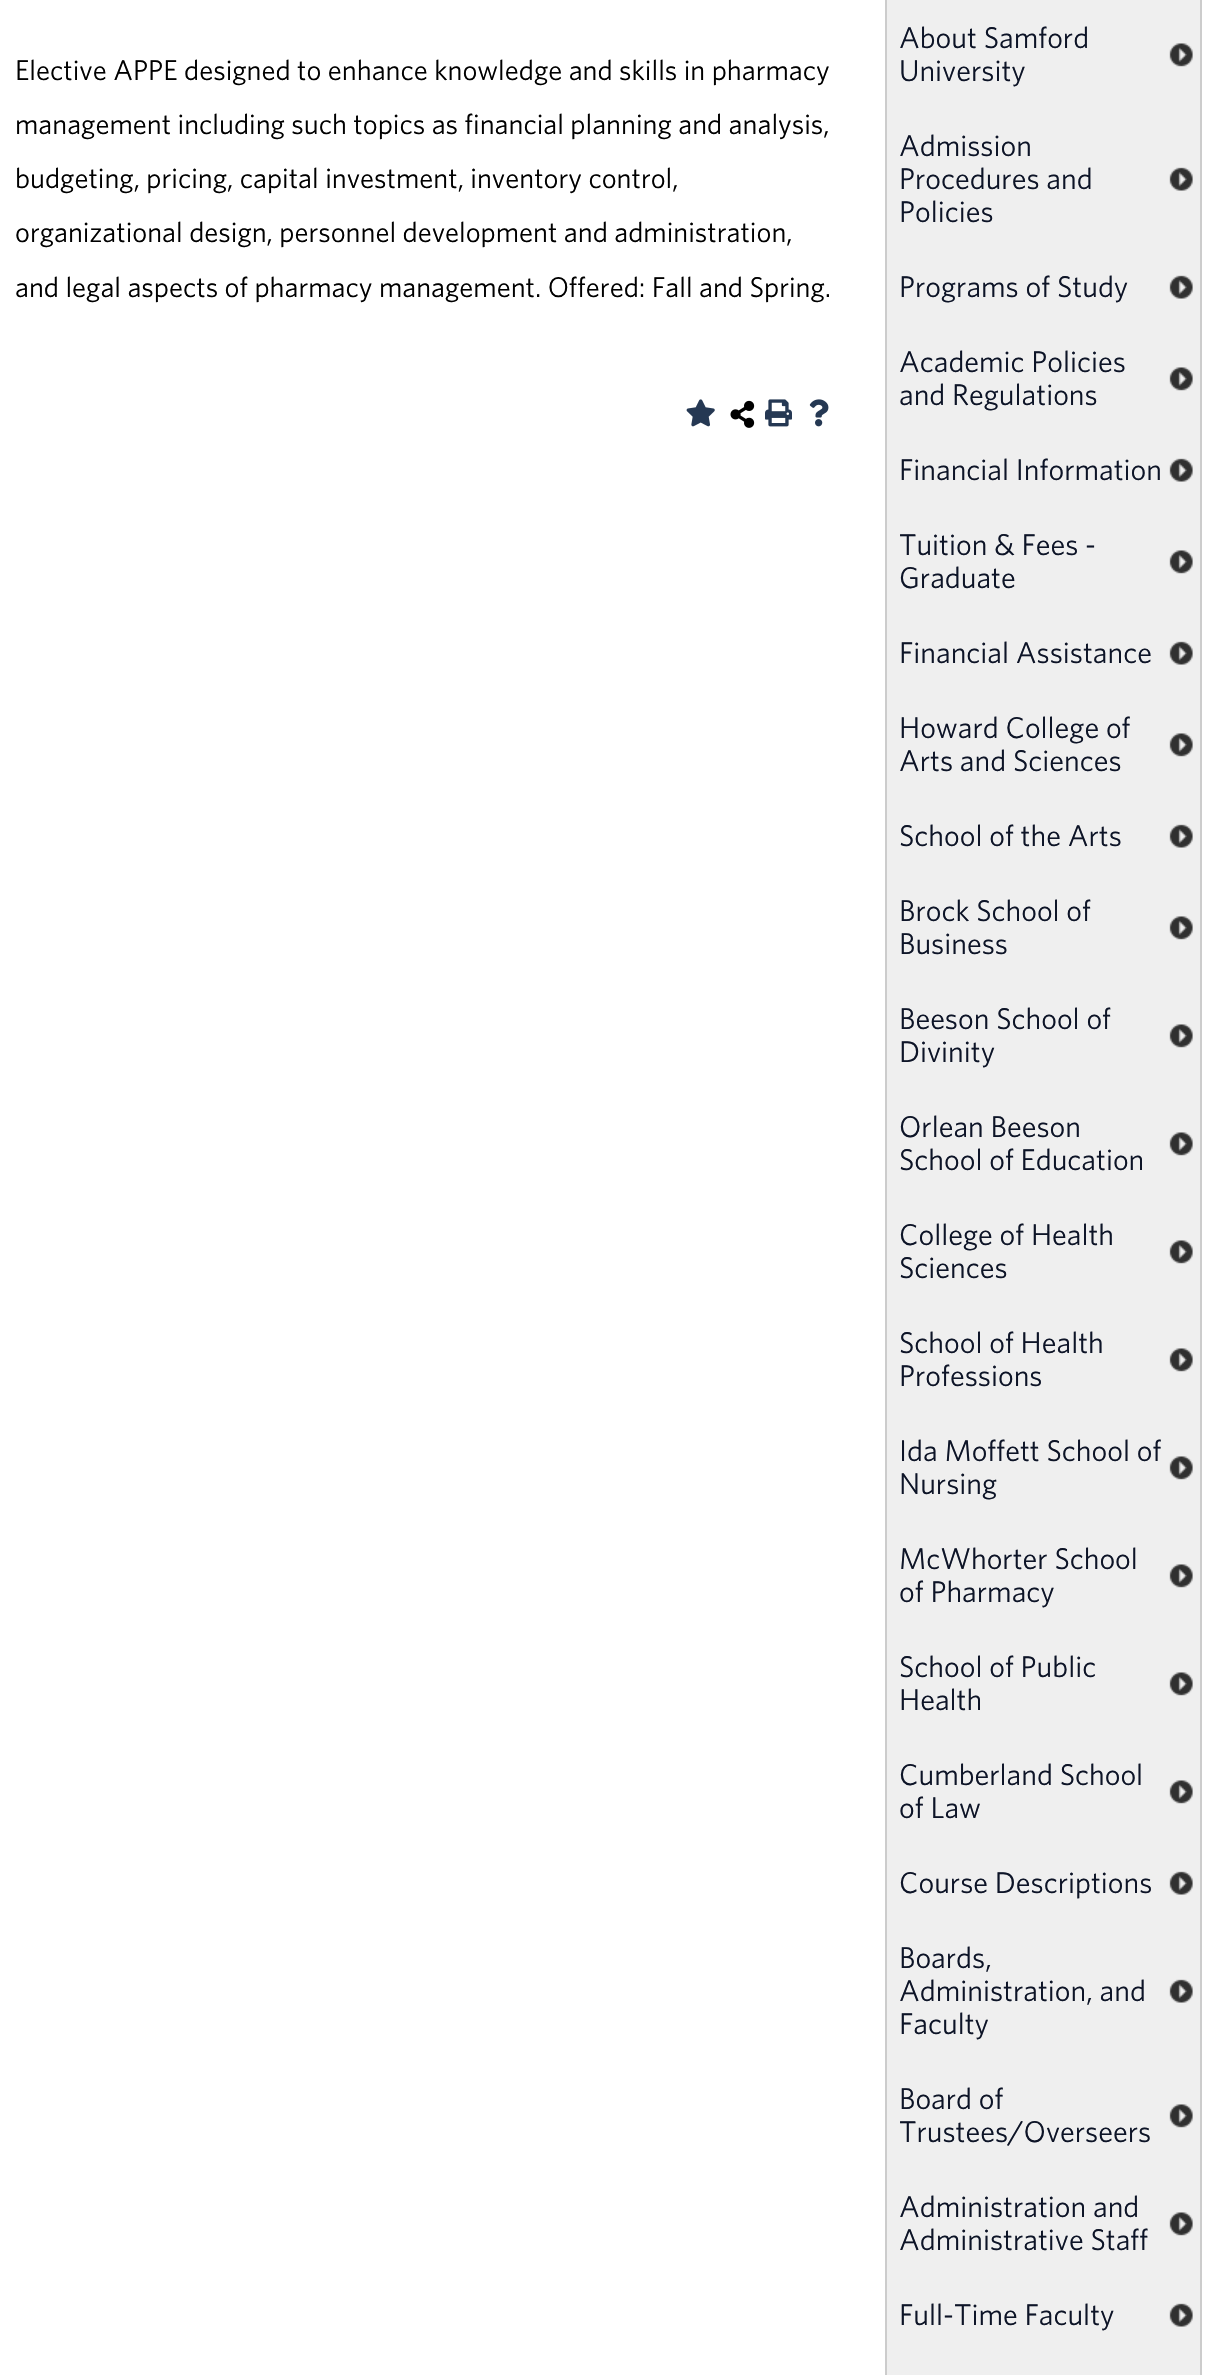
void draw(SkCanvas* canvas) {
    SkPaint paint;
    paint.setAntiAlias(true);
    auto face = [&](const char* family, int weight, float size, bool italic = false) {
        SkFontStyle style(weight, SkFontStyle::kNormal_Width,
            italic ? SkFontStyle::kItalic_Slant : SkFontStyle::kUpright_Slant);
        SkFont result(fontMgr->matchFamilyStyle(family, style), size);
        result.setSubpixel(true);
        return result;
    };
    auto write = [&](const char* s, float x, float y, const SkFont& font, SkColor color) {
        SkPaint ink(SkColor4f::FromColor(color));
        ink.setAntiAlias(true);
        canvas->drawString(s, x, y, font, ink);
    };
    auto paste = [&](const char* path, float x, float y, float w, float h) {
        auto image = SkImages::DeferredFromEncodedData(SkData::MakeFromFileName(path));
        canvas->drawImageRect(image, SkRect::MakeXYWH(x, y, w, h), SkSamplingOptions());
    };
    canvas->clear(SK_ColorWHITE);
    auto kFont1 = face("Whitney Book", 400, 28.5f);
    write("Elective APPE designed to enhance knowledge and skills in pharmacy", 15, 80, kFont1, SK_ColorBLACK);
    write("management including such topics as financial planning and analysis,", 15, 134, kFont1, SK_ColorBLACK);
    write("budgeting, pricing, capital investment, inventory control,", 15, 188, kFont1, SK_ColorBLACK);
    write("organizational design, personnel development and administration,", 15, 242, kFont1, SK_ColorBLACK);
    write("and legal aspects of pharmacy management. Offered: Fall and Spring.", 15, 297, kFont1, SK_ColorBLACK);
    paste("pic1.png", 686, 399, 29, 28);
    paste("pic2.png", 730, 400, 25, 28);
    paste("pic3.png", 765, 399, 27, 28);
    paste("pic4.png", 809, 399, 20, 28);
    paint.setColor(SkColorSetRGB(239, 239, 239));
    canvas->drawRect(SkRect::MakeXYWH(886, -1, 315, 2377), paint);
    paint.setStyle(SkPaint::kStroke_Style);
    paint.setStrokeWidth(2);
    paint.setColor(SkColorSetRGB(204, 204, 204));
    canvas->drawRect(SkRect::MakeXYWH(886, -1, 315, 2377), paint);
    paste("pic5.png", 1169, 43, 24, 24);
    auto kFont2 = face("Whitney Book", 400, 30);
    write("About Samford", 899, 48, kFont2, SkColorSetRGB(13, 20, 39));
    write("University", 899, 81, kFont2, SkColorSetRGB(13, 20, 39));
    paste("pic6.png", 1169, 167, 24, 24);
    write("Admission", 899, 156, kFont2, SkColorSetRGB(13, 20, 39));
    write("Procedures and", 899, 189, kFont2, SkColorSetRGB(13, 20, 39));
    write("Policies", 899, 222, kFont2, SkColorSetRGB(13, 20, 39));
    paste("pic6.png", 1169, 275, 24, 24);
    write("Programs of Study", 899, 297, kFont2, SkColorSetRGB(13, 20, 39));
    paste("pic5.png", 1169, 367, 24, 24);
    write("Academic Policies", 899, 372, kFont2, SkColorSetRGB(13, 20, 39));
    write("and Regulations", 899, 405, kFont2, SkColorSetRGB(13, 20, 39));
    paste("pic6.png", 1169, 458, 24, 24);
    write("Financial Information", 899, 480, kFont2, SkColorSetRGB(13, 20, 39));
    paste("pic5.png", 1169, 550, 24, 24);
    write("Tuition & Fees -", 899, 555, kFont2, SkColorSetRGB(13, 20, 39));
    write("Graduate", 899, 588, kFont2, SkColorSetRGB(13, 20, 39));
    paste("pic6.png", 1169, 641, 24, 24);
    write("Financial Assistance", 899, 663, kFont2, SkColorSetRGB(13, 20, 39));
    paste("pic5.png", 1169, 733, 24, 24);
    write("Howard College of", 899, 738, kFont2, SkColorSetRGB(13, 20, 39));
    write("Arts and Sciences", 899, 771, kFont2, SkColorSetRGB(13, 20, 39));
    paste("pic6.png", 1169, 824, 24, 24);
    write("School of the Arts", 899, 846, kFont2, SkColorSetRGB(13, 20, 39));
    paste("pic5.png", 1169, 916, 24, 24);
    write("Brock School of", 899, 921, kFont2, SkColorSetRGB(13, 20, 39));
    write("Business", 899, 954, kFont2, SkColorSetRGB(13, 20, 39));
    paste("pic5.png", 1169, 1024, 24, 24);
    write("Beeson School of", 899, 1029, kFont2, SkColorSetRGB(13, 20, 39));
    write("Divinity", 899, 1062, kFont2, SkColorSetRGB(13, 20, 39));
    paste("pic5.png", 1169, 1132, 24, 24);
    write("Orlean Beeson", 899, 1137, kFont2, SkColorSetRGB(13, 20, 39));
    write("School of Education", 899, 1170, kFont2, SkColorSetRGB(13, 20, 39));
    paste("pic5.png", 1169, 1240, 24, 24);
    write("College of Health", 899, 1245, kFont2, SkColorSetRGB(13, 20, 39));
    write("Sciences", 899, 1278, kFont2, SkColorSetRGB(13, 20, 39));
    paste("pic5.png", 1169, 1348, 24, 24);
    write("School of Health", 899, 1353, kFont2, SkColorSetRGB(13, 20, 39));
    write("Professions", 899, 1386, kFont2, SkColorSetRGB(13, 20, 39));
    paste("pic5.png", 1169, 1456, 24, 24);
    write("Ida Moffett School of", 899, 1461, kFont2, SkColorSetRGB(13, 20, 39));
    write("Nursing", 899, 1494, kFont2, SkColorSetRGB(13, 20, 39));
    paste("pic5.png", 1169, 1564, 24, 24);
    write("McWhorter School", 899, 1569, kFont2, SkColorSetRGB(13, 20, 39));
    write("of Pharmacy", 899, 1602, kFont2, SkColorSetRGB(13, 20, 39));
    paste("pic5.png", 1169, 1672, 24, 24);
    write("School of Public", 899, 1677, kFont2, SkColorSetRGB(13, 20, 39));
    write("Health", 899, 1710, kFont2, SkColorSetRGB(13, 20, 39));
    paste("pic5.png", 1169, 1780, 24, 24);
    write("Cumberland School", 899, 1785, kFont2, SkColorSetRGB(13, 20, 39));
    write("of Law", 899, 1818, kFont2, SkColorSetRGB(13, 20, 39));
    paste("pic6.png", 1169, 1871, 24, 24);
    write("Course Descriptions", 899, 1893, kFont2, SkColorSetRGB(13, 20, 39));
    paste("pic6.png", 1169, 1979, 24, 24);
    write("Boards,", 899, 1968, kFont2, SkColorSetRGB(13, 20, 39));
    write("Administration, and", 899, 2001, kFont2, SkColorSetRGB(13, 20, 39));
    write("Faculty", 899, 2034, kFont2, SkColorSetRGB(13, 20, 39));
    paste("pic5.png", 1169, 2104, 24, 24);
    write("Board of", 899, 2109, kFont2, SkColorSetRGB(13, 20, 39));
    write("Trustees/Overseers", 899, 2142, kFont2, SkColorSetRGB(13, 20, 39));
    paste("pic5.png", 1169, 2212, 24, 24);
    write("Administration and", 899, 2217, kFont2, SkColorSetRGB(13, 20, 39));
    write("Administrative Staff", 899, 2250, kFont2, SkColorSetRGB(13, 20, 39));
    paste("pic6.png", 1169, 2303, 24, 24);
    write("Full-Time Faculty", 899, 2325, kFont2, SkColorSetRGB(13, 20, 39));
}
